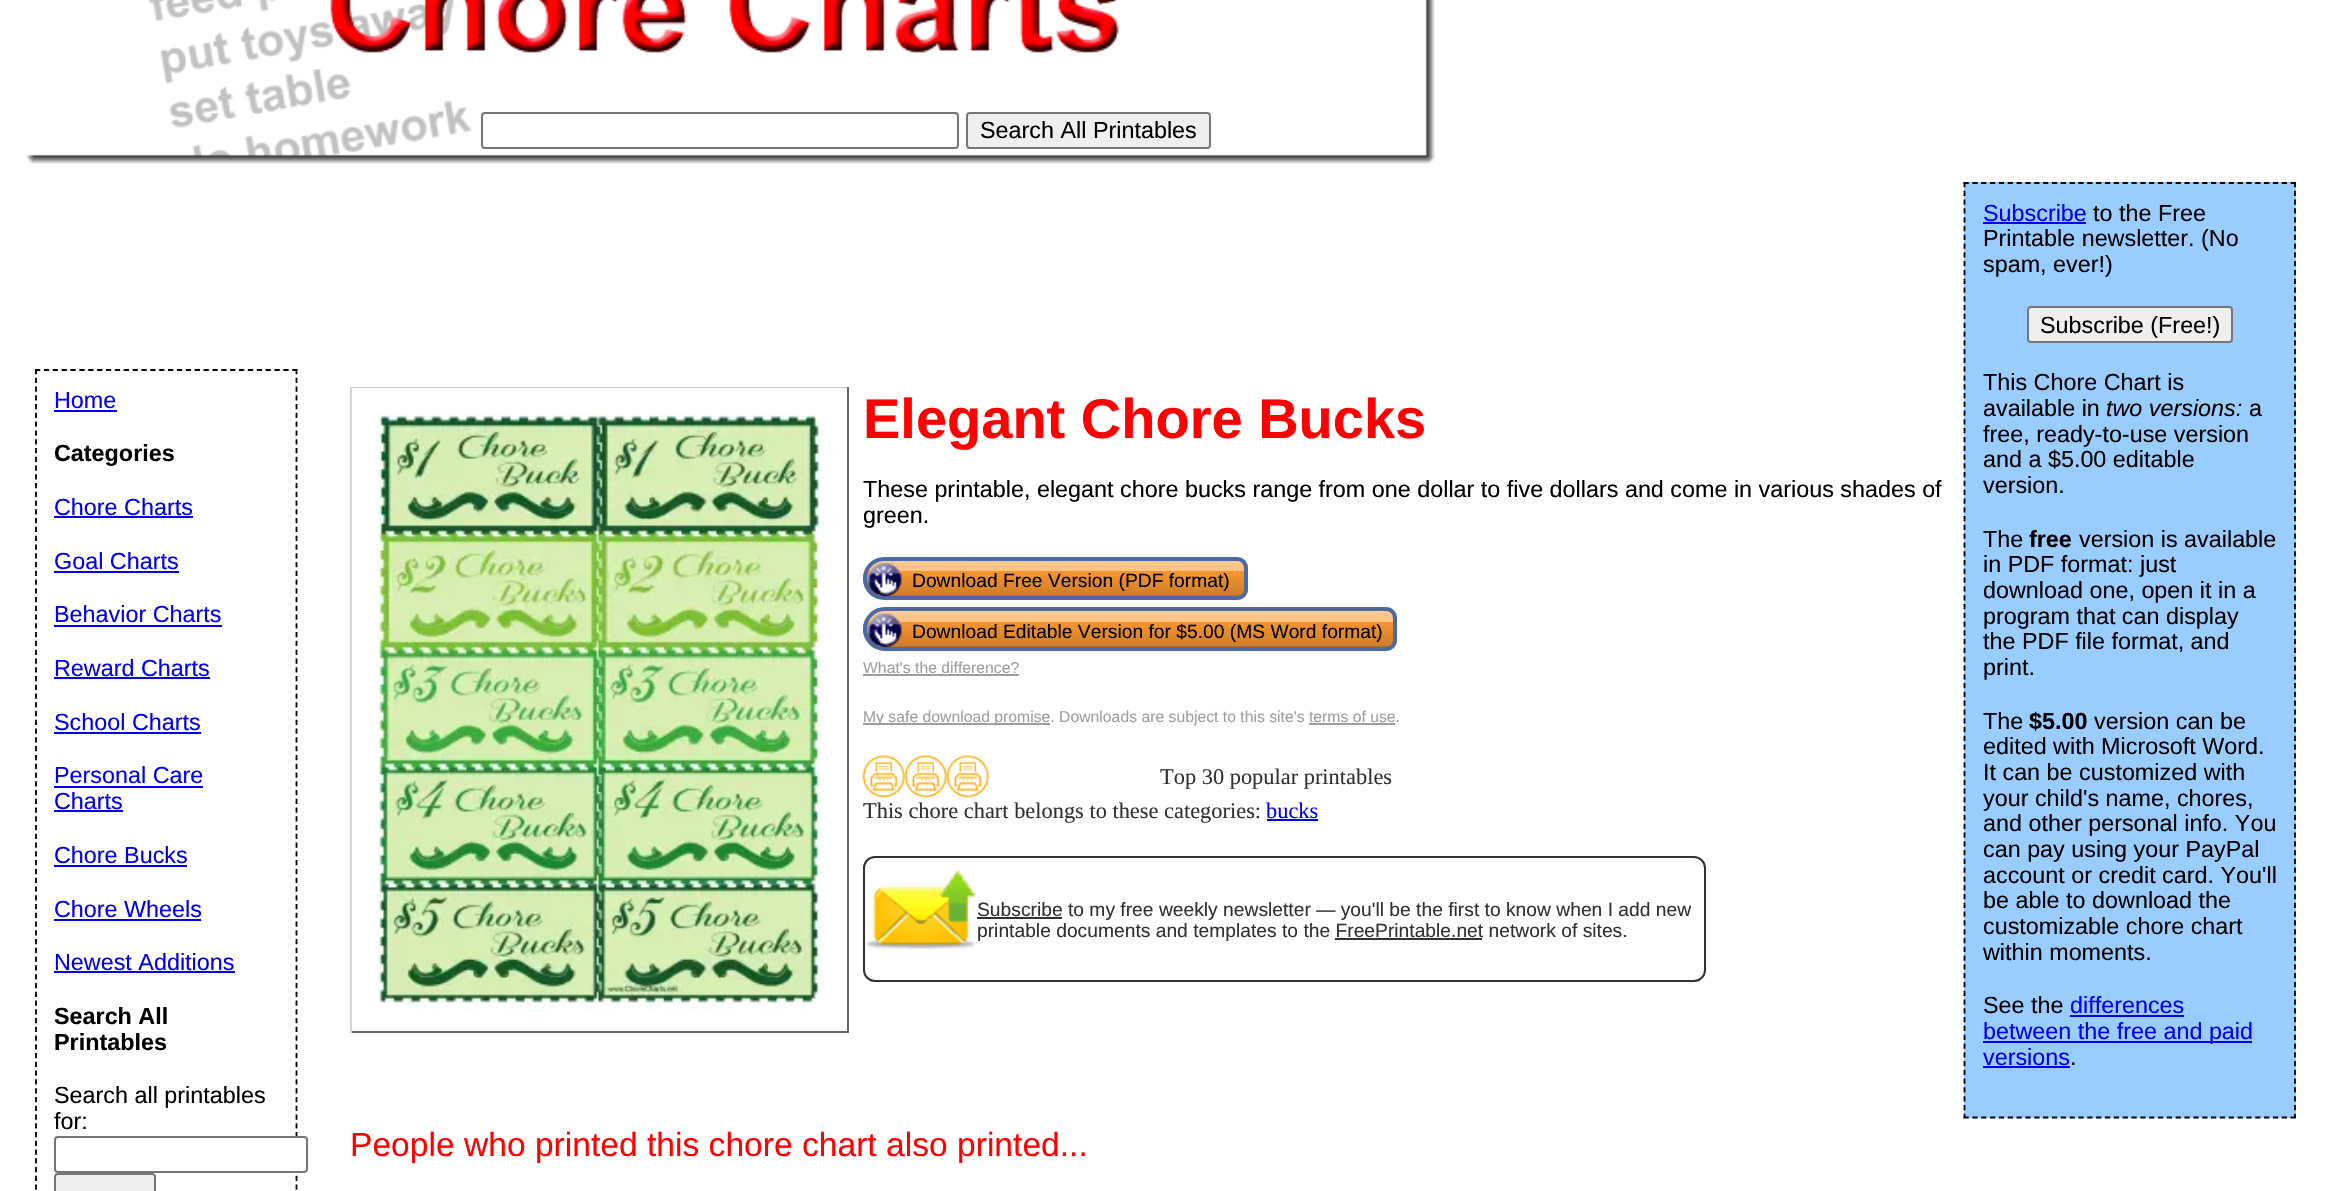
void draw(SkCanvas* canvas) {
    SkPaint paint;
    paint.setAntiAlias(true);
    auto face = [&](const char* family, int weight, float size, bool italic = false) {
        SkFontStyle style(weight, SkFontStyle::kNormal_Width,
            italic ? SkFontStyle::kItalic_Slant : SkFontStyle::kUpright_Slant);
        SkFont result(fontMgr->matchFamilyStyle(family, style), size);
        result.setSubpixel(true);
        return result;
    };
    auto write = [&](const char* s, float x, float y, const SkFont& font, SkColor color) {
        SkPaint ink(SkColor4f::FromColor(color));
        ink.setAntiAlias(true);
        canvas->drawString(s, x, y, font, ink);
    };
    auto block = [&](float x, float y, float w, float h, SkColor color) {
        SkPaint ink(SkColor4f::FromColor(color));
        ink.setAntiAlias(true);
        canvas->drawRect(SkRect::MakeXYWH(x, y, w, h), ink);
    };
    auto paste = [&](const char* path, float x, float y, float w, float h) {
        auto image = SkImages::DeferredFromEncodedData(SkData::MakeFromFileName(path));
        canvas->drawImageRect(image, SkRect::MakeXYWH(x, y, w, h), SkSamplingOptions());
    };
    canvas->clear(SK_ColorWHITE);
    paste("pic1.png", 26, 0, 1409, 164);
    paint.setStyle(SkPaint::kStroke_Style);
    paint.setStrokeWidth(2);
    paint.setColor(SkColorSetRGB(118, 118, 118));
    canvas->drawRoundRect(SkRect::MakeXYWH(482, 113, 476, 35), 3, 3, paint);
    paint.setStyle(SkPaint::kFill_Style);
    paint.setColor(SkColorSetRGB(239, 239, 239));
    canvas->drawRoundRect(SkRect::MakeXYWH(967, 113, 243, 35), 3, 3, paint);
    paint.setStyle(SkPaint::kStroke_Style);
    paint.setColor(SkColorSetRGB(118, 118, 118));
    canvas->drawRoundRect(SkRect::MakeXYWH(967, 113, 243, 35), 3, 3, paint);
    auto kFont1 = face("Liberation Sans", 400, 23.35f);
    write("Search All Printables", 980, 138, kFont1, SK_ColorBLACK);
    paint.setStrokeWidth(1.8f);
    paint.setColor(SK_ColorBLACK);
    paint.setPathEffect(SkDashPathEffect::Make({{5.25f, 3.62f}}, 0));
    canvas->drawPath(SkPathBuilder().moveTo(35, 370).lineTo(297.5f, 370).detach(), paint);
    paint.setPathEffect(nullptr);
    paint.setPathEffect(SkDashPathEffect::Make({{5.25f, 3.52f}}, 0));
    canvas->drawPath(SkPathBuilder().moveTo(296.5f, 369).lineTo(296.5f, 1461).detach(), paint);
    paint.setPathEffect(nullptr);
    paint.setPathEffect(SkDashPathEffect::Make({{5.25f, 3.52f}}, 0));
    canvas->drawPath(SkPathBuilder().moveTo(36, 369).lineTo(36, 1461).detach(), paint);
    paint.setPathEffect(nullptr);
    write("Home", 54, 408, kFont1, SkColorSetRGB(0, 0, 238));
    block(54, 410, 63, 2, SkColorSetRGB(0, 0, 238));
    auto kFont2 = face("Liberation Sans", 700, 23.35f);
    write("Categories", 54, 461, kFont2, SK_ColorBLACK);
    write("Chore Charts", 54, 515, kFont1, SkColorSetRGB(0, 0, 238));
    block(54, 516, 139, 2, SkColorSetRGB(0, 0, 238));
    write("Goal Charts", 54, 569, kFont1, SkColorSetRGB(0, 0, 238));
    block(54, 571, 125, 2, SkColorSetRGB(0, 0, 238));
    write("Behavior Charts", 54, 622, kFont1, SkColorSetRGB(0, 0, 238));
    block(54, 625, 168, 2, SkColorSetRGB(0, 0, 238));
    write("Reward Charts", 54, 676, kFont1, SkColorSetRGB(0, 0, 238));
    block(54, 677, 156, 2, SkColorSetRGB(0, 0, 238));
    write("School Charts", 54, 730, kFont1, SkColorSetRGB(0, 0, 238));
    block(54, 732, 147, 2, SkColorSetRGB(0, 0, 238));
    write("Personal Care", 54, 783, kFont1, SkColorSetRGB(0, 0, 238));
    block(54, 786, 149, 2, SkColorSetRGB(0, 0, 238));
    write("Charts", 54, 809, kFont1, SkColorSetRGB(0, 0, 238));
    block(54, 810, 69, 2, SkColorSetRGB(0, 0, 238));
    write("Chore Bucks", 54, 863, kFont1, SkColorSetRGB(0, 0, 238));
    block(54, 865, 133, 2, SkColorSetRGB(0, 0, 238));
    write("Chore Wheels", 54, 917, kFont1, SkColorSetRGB(0, 0, 238));
    block(54, 919, 147, 2, SkColorSetRGB(0, 0, 238));
    write("Newest Additions", 54, 970, kFont1, SkColorSetRGB(0, 0, 238));
    block(54, 971, 181, 2, SkColorSetRGB(0, 0, 238));
    write("Search All", 54, 1024, kFont2, SK_ColorBLACK);
    write("Printables", 54, 1050, kFont2, SK_ColorBLACK);
    write("Search all printables", 54, 1103, kFont1, SK_ColorBLACK);
    write("for:", 54, 1129, kFont1, SK_ColorBLACK);
    paint.setStyle(SkPaint::kFill_Style);
    paint.setColor(SK_ColorWHITE);
    canvas->drawRoundRect(SkRect::MakeXYWH(55, 1137, 252, 35), 3, 3, paint);
    paint.setStyle(SkPaint::kStroke_Style);
    paint.setStrokeWidth(2);
    paint.setColor(SkColorSetRGB(118, 118, 118));
    canvas->drawRoundRect(SkRect::MakeXYWH(55, 1137, 252, 35), 3, 3, paint);
    paint.setStyle(SkPaint::kFill_Style);
    paint.setColor(SkColorSetRGB(239, 239, 239));
    canvas->drawRoundRect(SkRect::MakeXYWH(55, 1174, 100, 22), 3, 3, paint);
    paint.setStyle(SkPaint::kStroke_Style);
    paint.setColor(SkColorSetRGB(118, 118, 118));
    canvas->drawRoundRect(SkRect::MakeXYWH(55, 1174, 100, 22), 3, 3, paint);
    block(350, 387, 499, 1, SkColorSetRGB(204, 204, 204));
    block(847, 387, 2, 646, SkColorSetRGB(102, 102, 102));
    block(350, 1031, 499, 2, SkColorSetRGB(102, 102, 102));
    block(350, 387, 2, 646, SkColorSetRGB(204, 204, 204));
    paste("pic2.png", 351, 388, 496, 642);
    auto kFont3 = face("Liberation Sans", 700, 56);
    write("Elegant Chore Bucks", 863, 438, kFont3, SkColorSetRGB(255, 0, 0));
    write("These printable, elegant chore bucks range from one dollar to five dollars and come in various shades of", 863, 497, kFont1, SK_ColorBLACK);
    write("green.", 863, 523, kFont1, SK_ColorBLACK);
    canvas->save();
    canvas->clipPath(SkPathBuilder().moveTo(884.5f, 557).lineTo(1237, 557).cubicTo(1243, 557, 1248, 562, 1248, 568).lineTo(1248, 589).cubicTo(1248, 595, 1243, 600, 1237, 600).lineTo(884.5f, 600).cubicTo(872.5f, 600, 863, 590.5f, 863, 578.5f).cubicTo(863, 566.5f, 872.5f, 557, 884.5f, 557).close().detach(), true);
    paint.setStyle(SkPaint::kFill_Style);
    {
        const SkColor colors[] = {SkColorSetRGB(255, 208, 158), SkColorSetRGB(255, 195, 132), SkColorSetRGB(255, 195, 132), SkColorSetRGB(244, 149, 48), SkColorSetRGB(208, 126, 41), SkColorSetRGB(191, 116, 37), SkColorSetRGB(164, 100, 32)};
        const float stops[] = {0, 0.15f, 0.3f, 0.31f, 0.94f, 0.95f, 1};
        const SkPoint ends[] = {{1055, 560}, {1055, 597}};
        paint.setShader(SkGradientShader::MakeLinear(ends, colors, stops, 7, SkTileMode::kClamp));
        paint.setAlpha(255);
    }
    canvas->drawRect(SkRect::MakeXYWH(863, 560, 385, 37), paint);
    canvas->restore();
    paint.setStyle(SkPaint::kStroke_Style);
    paint.setStrokeWidth(4);
    paint.setShader(nullptr);
    paint.setColor(SkColorSetRGB(76, 105, 164));
    canvas->drawPath(SkPathBuilder().moveTo(884.5f, 559).lineTo(1237, 559).cubicTo(1242, 559, 1246, 563, 1246, 568).lineTo(1246, 589).cubicTo(1246, 594, 1242, 598, 1237, 598).lineTo(884.5f, 598).cubicTo(873.5f, 598, 865, 589.5f, 865, 578.5f).cubicTo(865, 567.5f, 873.5f, 559, 884.5f, 559).close().detach(), paint);
    paste("pic3.png", 868, 561, 34, 36);
    auto kFont4 = face("Liberation Sans", 400, 19.25f);
    write("Download Free Version (PDF format)", 912, 587, kFont4, SK_ColorBLACK);
    canvas->save();
    canvas->clipPath(SkPathBuilder().moveTo(885, 607).lineTo(1386, 607).cubicTo(1392, 607, 1397, 612, 1397, 618).lineTo(1397, 640).cubicTo(1397, 646, 1392, 651, 1386, 651).lineTo(885, 651).cubicTo(873, 651, 863, 641, 863, 629).cubicTo(863, 617, 873, 607, 885, 607).close().detach(), true);
    paint.setStyle(SkPaint::kFill_Style);
    {
        const SkColor colors[] = {SkColorSetRGB(255, 208, 158), SkColorSetRGB(255, 195, 132), SkColorSetRGB(255, 195, 132), SkColorSetRGB(244, 149, 48), SkColorSetRGB(208, 126, 41), SkColorSetRGB(191, 116, 37), SkColorSetRGB(164, 100, 32)};
        const float stops[] = {0, 0.15f, 0.3f, 0.31f, 0.94f, 0.95f, 1};
        const SkPoint ends[] = {{1130, 611}, {1130, 648}};
        paint.setShader(SkGradientShader::MakeLinear(ends, colors, stops, 7, SkTileMode::kClamp));
        paint.setAlpha(255);
    }
    canvas->drawRect(SkRect::MakeXYWH(863, 611, 534, 37), paint);
    canvas->restore();
    paint.setStyle(SkPaint::kStroke_Style);
    paint.setShader(nullptr);
    paint.setColor(SkColorSetRGB(76, 105, 164));
    canvas->drawPath(SkPathBuilder().moveTo(885, 609).lineTo(1386, 609).cubicTo(1391, 609, 1395, 613, 1395, 618).lineTo(1395, 640).cubicTo(1395, 645, 1391, 649, 1386, 649).lineTo(885, 649).cubicTo(874, 649, 865, 640, 865, 629).cubicTo(865, 618, 874, 609, 885, 609).close().detach(), paint);
    paste("pic4.png", 868, 612, 34, 35);
    write("Download Editable Version for $5.00 (MS Word format)", 912, 638, kFont4, SK_ColorBLACK);
    auto kFont5 = face("Liberation Sans", 400, 15.75f);
    write("What's the difference?", 863, 673, kFont5, SkColorSetRGB(158, 158, 158));
    block(863, 674, 156, 2, SkColorSetRGB(158, 158, 158));
    block(863, 723, 187, 2, SkColorSetRGB(158, 158, 158));
    write("My safe download promise. Downloads are subject to this site's terms of use.", 863, 722, kFont5, SkColorSetRGB(158, 158, 158));
    block(1309, 723, 86, 2, SkColorSetRGB(158, 158, 158));
    paste("pic5.png", 862, 755, 43, 43);
    paste("pic6.png", 904, 755, 43, 43);
    paste("pic7.png", 946, 755, 43, 43);
    auto kFont6 = face("Liberation Serif", 400, 22.4f);
    write("Top 30 popular printables", 1160, 784, kFont6, SkColorSetRGB(49, 49, 49));
    write("This chore chart belongs to these categories:", 863, 818, kFont6, SkColorSetRGB(49, 49, 49));
    write("bucks", 1266, 818, kFont6, SkColorSetRGB(0, 0, 238));
    block(1267, 819, 51, 2, SkColorSetRGB(0, 0, 238));
    paint.setStrokeWidth(2);
    paint.setColor(SkColorSetRGB(49, 49, 49));
    canvas->drawRoundRect(SkRect::MakeXYWH(864, 857, 841, 124), 11, 11, paint);
    paste("pic8.png", 865, 870, 112, 80);
    block(977, 917, 85, 2, SkColorSetRGB(49, 49, 49));
    write("Subscribe to my free weekly newsletter — you'll be the first to know when I add new", 977, 916, kFont4, SkColorSetRGB(49, 49, 49));
    write("printable documents and templates to the FreePrintable.net network of sites.", 977, 937, kFont4, SkColorSetRGB(49, 49, 49));
    block(1335, 938, 147, 2, SkColorSetRGB(49, 49, 49));
    auto kFont7 = face("Liberation Sans", 400, 33.6f);
    write("People who printed this chore chart also printed...", 350, 1156, kFont7, SkColorSetRGB(255, 0, 0));
    block(1964, 182, 332, 936, SkColorSetRGB(153, 204, 255));
    paint.setStrokeWidth(1.8f);
    paint.setColor(SK_ColorBLACK);
    paint.setPathEffect(SkDashPathEffect::Make({{5.25f, 3.59f}}, 0));
    canvas->drawPath(SkPathBuilder().moveTo(1963.5f, 183).lineTo(2296, 183).detach(), paint);
    paint.setPathEffect(nullptr);
    paint.setPathEffect(SkDashPathEffect::Make({{5.25f, 3.54f}}, 0));
    canvas->drawPath(SkPathBuilder().moveTo(2295, 182).lineTo(2295, 1118).detach(), paint);
    paint.setPathEffect(nullptr);
    paint.setPathEffect(SkDashPathEffect::Make({{5.25f, 3.59f}}, 0));
    canvas->drawPath(SkPathBuilder().moveTo(1963.5f, 1117.5f).lineTo(2296, 1117.5f).detach(), paint);
    paint.setPathEffect(nullptr);
    paint.setPathEffect(SkDashPathEffect::Make({{5.25f, 3.54f}}, 0));
    canvas->drawPath(SkPathBuilder().moveTo(1964.5f, 182).lineTo(1964.5f, 1118).detach(), paint);
    paint.setPathEffect(nullptr);
    write("Subscribe", 1983, 221, kFont1, SkColorSetRGB(0, 0, 238));
    block(1983, 222, 103, 2, SkColorSetRGB(0, 0, 238));
    write("to the Free", 2093, 221, kFont1, SK_ColorBLACK);
    write("Printable newsletter. (No", 1983, 246, kFont1, SK_ColorBLACK);
    write("spam, ever!)", 1983, 272, kFont1, SK_ColorBLACK);
    paint.setStyle(SkPaint::kFill_Style);
    paint.setColor(SkColorSetRGB(239, 239, 239));
    canvas->drawRoundRect(SkRect::MakeXYWH(2028, 307, 204, 35), 3, 3, paint);
    paint.setStyle(SkPaint::kStroke_Style);
    paint.setStrokeWidth(2);
    paint.setColor(SkColorSetRGB(118, 118, 118));
    canvas->drawRoundRect(SkRect::MakeXYWH(2028, 307, 204, 35), 3, 3, paint);
    write("Subscribe (Free!)", 2040, 333, kFont1, SK_ColorBLACK);
    write("This Chore Chart is", 1983, 390, kFont1, SK_ColorBLACK);
    write("available in", 1983, 416, kFont1, SK_ColorBLACK);
    auto kFont8 = face("Liberation Sans", 400, 23.35f, true);
    write("two versions:", 2106, 416, kFont8, SK_ColorBLACK);
    write("a", 2249, 416, kFont1, SK_ColorBLACK);
    write("free, ready-to-use version", 1983, 442, kFont1, SK_ColorBLACK);
    write("and a $5.00 editable", 1983, 467, kFont1, SK_ColorBLACK);
    write("version.", 1983, 493, kFont1, SK_ColorBLACK);
    write("The", 1983, 547, kFont1, SK_ColorBLACK);
    write("free", 2029, 547, kFont2, SK_ColorBLACK);
    write("version is available", 2079, 547, kFont1, SK_ColorBLACK);
    write("in PDF format: just", 1983, 572, kFont1, SK_ColorBLACK);
    write("download one, open it in a", 1983, 598, kFont1, SK_ColorBLACK);
    write("program that can display", 1983, 624, kFont1, SK_ColorBLACK);
    write("the PDF file format, and", 1983, 649, kFont1, SK_ColorBLACK);
    write("print.", 1983, 675, kFont1, SK_ColorBLACK);
    write("The", 1983, 729, kFont1, SK_ColorBLACK);
    write("$5.00", 2029, 729, kFont2, SK_ColorBLACK);
    write("version can be", 2094, 729, kFont1, SK_ColorBLACK);
    write("edited with Microsoft Word.", 1983, 754, kFont1, SK_ColorBLACK);
    write("It can be customized with", 1983, 780, kFont1, SK_ColorBLACK);
    write("your child's name, chores,", 1983, 806, kFont1, SK_ColorBLACK);
    write("and other personal info. You", 1983, 831, kFont1, SK_ColorBLACK);
    write("can pay using your PayPal", 1983, 857, kFont1, SK_ColorBLACK);
    write("account or credit card. You'll", 1983, 883, kFont1, SK_ColorBLACK);
    write("be able to download the", 1983, 908, kFont1, SK_ColorBLACK);
    write("customizable chore chart", 1983, 934, kFont1, SK_ColorBLACK);
    write("within moments.", 1983, 960, kFont1, SK_ColorBLACK);
    write("See the", 1983, 1013, kFont1, SK_ColorBLACK);
    write("differences", 2070, 1013, kFont1, SkColorSetRGB(0, 0, 238));
    block(2070, 1015, 114, 2, SkColorSetRGB(0, 0, 238));
    block(1983, 1041, 269, 2, SkColorSetRGB(0, 0, 238));
    write("between the free and paid", 1983, 1039, kFont1, SkColorSetRGB(0, 0, 238));
    write("versions", 1983, 1065, kFont1, SkColorSetRGB(0, 0, 238));
    block(1983, 1066, 87, 2, SkColorSetRGB(0, 0, 238));
    write(".", 2070, 1065, kFont1, SK_ColorBLACK);
}
